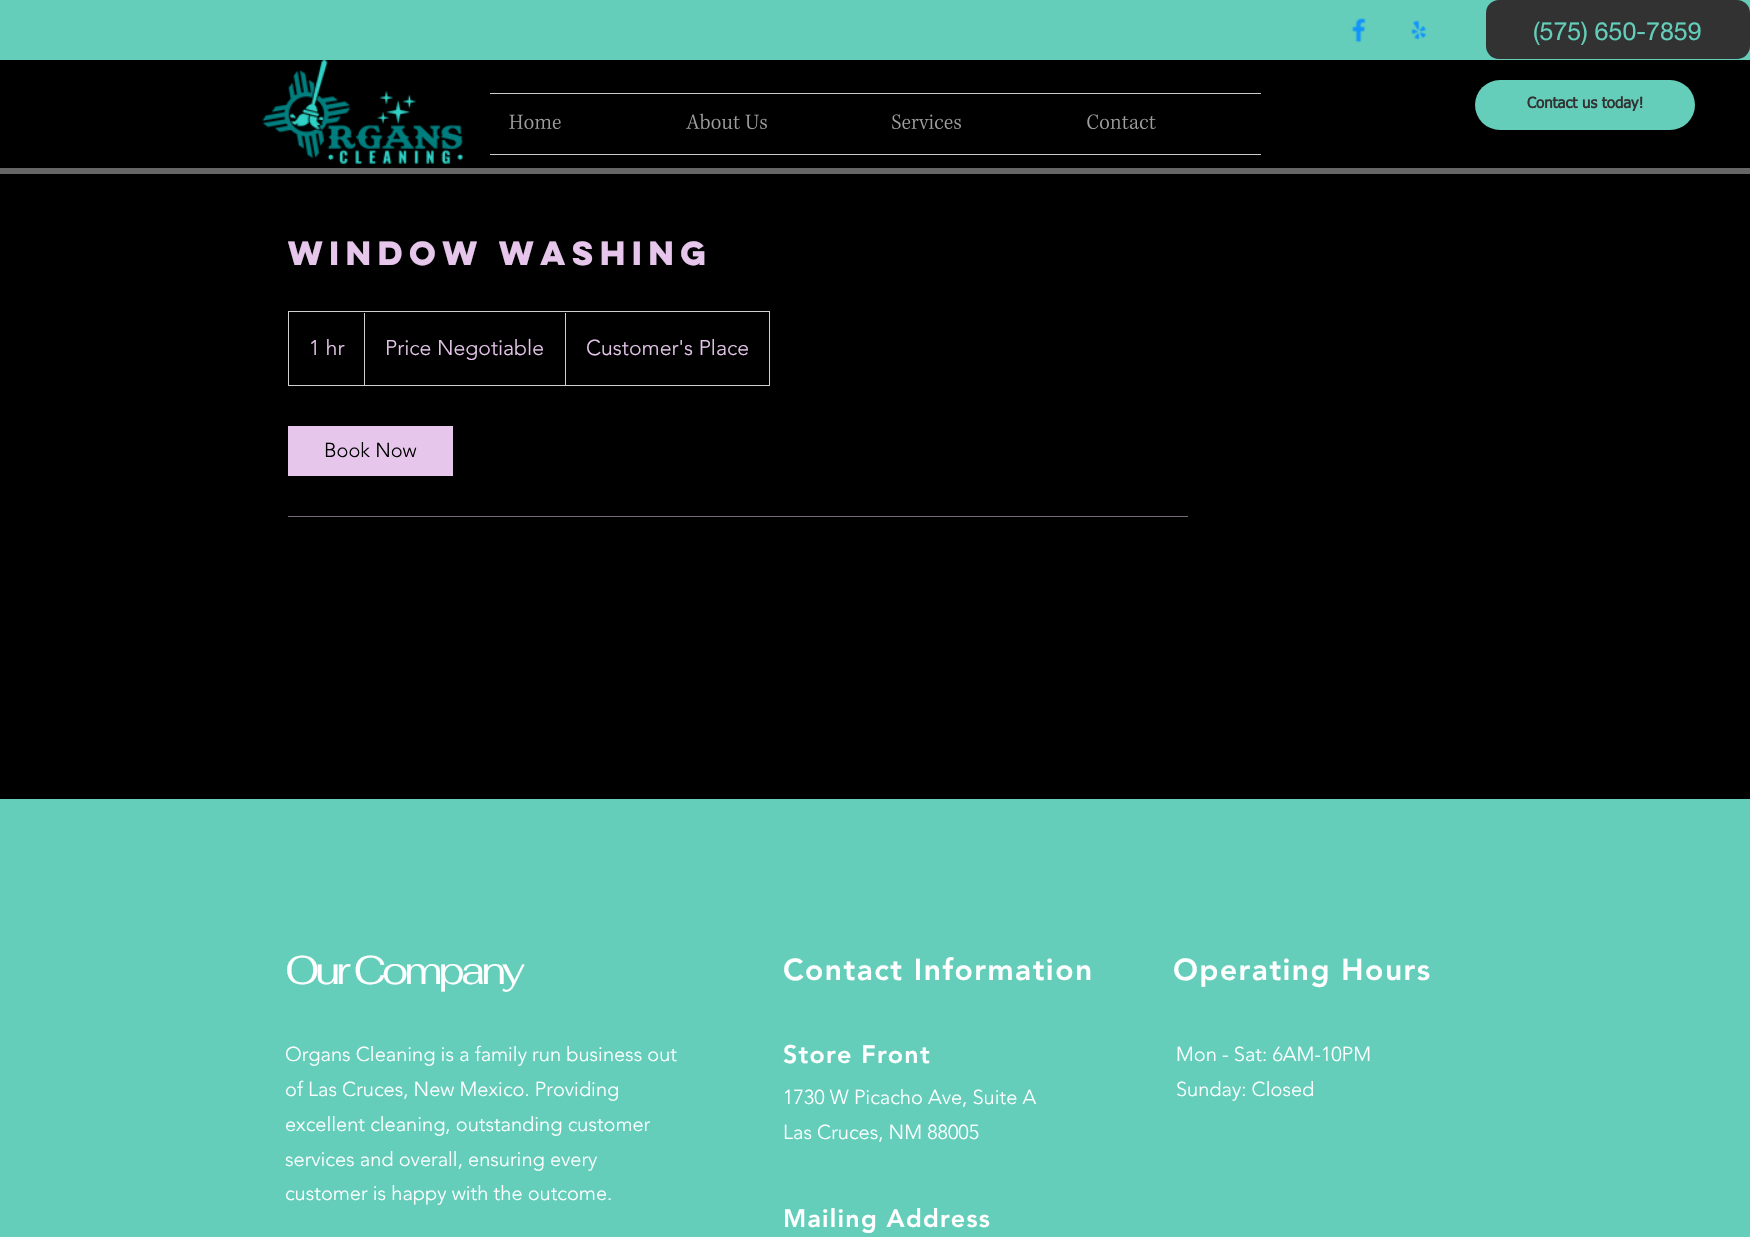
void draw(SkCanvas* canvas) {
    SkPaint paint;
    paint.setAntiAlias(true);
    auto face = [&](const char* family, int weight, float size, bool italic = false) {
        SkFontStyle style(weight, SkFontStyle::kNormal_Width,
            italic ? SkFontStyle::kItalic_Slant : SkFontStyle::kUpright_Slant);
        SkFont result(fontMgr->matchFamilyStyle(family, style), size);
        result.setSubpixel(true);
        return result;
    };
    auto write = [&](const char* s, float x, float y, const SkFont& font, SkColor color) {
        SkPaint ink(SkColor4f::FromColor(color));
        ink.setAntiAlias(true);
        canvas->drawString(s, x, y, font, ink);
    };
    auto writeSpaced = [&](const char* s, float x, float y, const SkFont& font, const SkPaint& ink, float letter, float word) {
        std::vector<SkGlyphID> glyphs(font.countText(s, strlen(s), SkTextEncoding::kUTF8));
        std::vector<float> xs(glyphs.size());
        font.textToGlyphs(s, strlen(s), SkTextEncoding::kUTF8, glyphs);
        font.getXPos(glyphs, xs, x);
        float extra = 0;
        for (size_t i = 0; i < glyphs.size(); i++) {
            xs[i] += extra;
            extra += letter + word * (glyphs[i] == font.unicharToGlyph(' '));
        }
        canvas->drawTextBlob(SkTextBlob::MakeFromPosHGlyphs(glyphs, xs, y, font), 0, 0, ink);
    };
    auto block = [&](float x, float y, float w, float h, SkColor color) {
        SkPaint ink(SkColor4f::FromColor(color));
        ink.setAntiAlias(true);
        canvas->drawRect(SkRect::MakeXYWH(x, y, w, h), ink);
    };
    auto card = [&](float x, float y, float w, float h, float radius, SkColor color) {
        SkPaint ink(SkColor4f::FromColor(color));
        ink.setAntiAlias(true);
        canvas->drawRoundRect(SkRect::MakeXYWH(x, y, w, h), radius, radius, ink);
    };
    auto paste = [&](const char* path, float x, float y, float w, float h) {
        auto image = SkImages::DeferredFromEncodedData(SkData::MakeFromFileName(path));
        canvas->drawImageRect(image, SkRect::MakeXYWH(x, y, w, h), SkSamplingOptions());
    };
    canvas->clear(SK_ColorBLACK);
    block(0, 0, 1750, 60, SkColorSetRGB(100, 206, 187));
    paste("pic1.png", 262, 60, 201, 104);
    block(0, 168, 1750, 6, SkColorSetRGB(102, 102, 102));
    paste("pic2.png", 1351, 18, 15, 25);
    paste("pic3.png", 1411, 20, 16, 20);
    card(1486, 0, 264, 59, 13, SkColorSetRGB(50, 50, 50));
    auto kFont1 = face("helvetica neue", 400, 25);
    write("(575) 650-7859", 1533, 40, kFont1, SkColorSetRGB(100, 206, 187));
    card(1475, 80, 220, 50, 25, SkColorSetRGB(100, 206, 187));
    auto kFont2 = face("tahoma", 700, 15);
    write("Contact us today!", 1527, 108, kFont2, SkColorSetRGB(50, 50, 50));
    block(490, 93, 771, 1, SkColorSetRGB(202, 202, 202));
    block(490, 154, 771, 1, SkColorSetRGB(202, 202, 202));
    paste("pic4.png", 509, 114, 52, 16);
    paste("pic5.png", 686, 113, 81, 17);
    paste("pic6.png", 892, 114, 69, 16);
    paste("pic7.png", 1087, 114, 69, 16);
    auto kFont3 = face("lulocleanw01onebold", 700, 30);
    write("Window Washing", 288, 265, kFont3, SkColorSetRGB(230, 199, 235));
    paint.setStyle(SkPaint::kStroke_Style);
    paint.setStrokeWidth(1);
    paint.setColor(SkColorSetRGB(209, 209, 209));
    canvas->drawRect(SkRect::MakeXYWH(288.5f, 311.5f, 481, 74), paint);
    auto kFont4 = face("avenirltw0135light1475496", 300, 21.25f);
    write("1 hr", 309, 355, kFont4, SkColorSetRGB(230, 199, 235));
    block(364, 313, 1, 72, SkColorSetRGB(209, 209, 209));
    write("Price Negotiable", 385, 355, kFont4, SkColorSetRGB(230, 199, 235));
    block(565, 313, 1, 72, SkColorSetRGB(209, 209, 209));
    write("Customer's Place", 586, 355, kFont4, SkColorSetRGB(230, 199, 235));
    block(288, 426, 165, 50, SkColorSetRGB(230, 199, 235));
    auto kFont5 = face("avenirltw0135light1475496", 300, 20);
    write("Book Now", 324, 457, kFont5, SK_ColorBLACK);
    block(288, 516, 900, 1, SkColorSetRGB(120, 104, 122));
    block(0, 799, 1750, 438, SkColorSetRGB(100, 206, 187));
    auto kFont6 = face("Fahkwang", 400, 40);
    paint.setStyle(SkPaint::kFill_Style);
    paint.setColor(SK_ColorWHITE);
    writeSpaced("Our Company", 285, 984, kFont6, paint, -4, 0);
    auto kFont7 = face("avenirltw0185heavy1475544", 900, 30);
    writeSpaced("Contact Information", 783, 980, kFont7, paint, 1.5f, 0);
    writeSpaced("Operating Hours", 1173, 980, kFont7, paint, 1.5f, 0);
    write("Organs Cleaning is a family run business out", 285, 1061, kFont5, SK_ColorWHITE);
    write("of Las Cruces, New Mexico. Providing", 285, 1096, kFont5, SK_ColorWHITE);
    write("excellent cleaning, outstanding customer", 285, 1131, kFont5, SK_ColorWHITE);
    write("services and overall, ensuring every", 285, 1166, kFont5, SK_ColorWHITE);
    write("customer is happy with the outcome.", 285, 1200, kFont5, SK_ColorWHITE);
    auto kFont8 = face("avenirltw0185heavy1475544", 900, 25);
    writeSpaced("Store Front", 783, 1063, kFont8, paint, 1.25f, 0);
    write("Mon - Sat: 6AM-10PM", 1176, 1061, kFont5, SK_ColorWHITE);
    write("Sunday: Closed", 1176, 1096, kFont5, SK_ColorWHITE);
    write("1730 W Picacho Ave, Suite A", 783, 1104, kFont5, SK_ColorWHITE);
    write("Las Cruces, NM 88005", 783, 1139, kFont5, SK_ColorWHITE);
    writeSpaced("Mailing Address", 783, 1227, kFont8, paint, 1.25f, 0);
}
